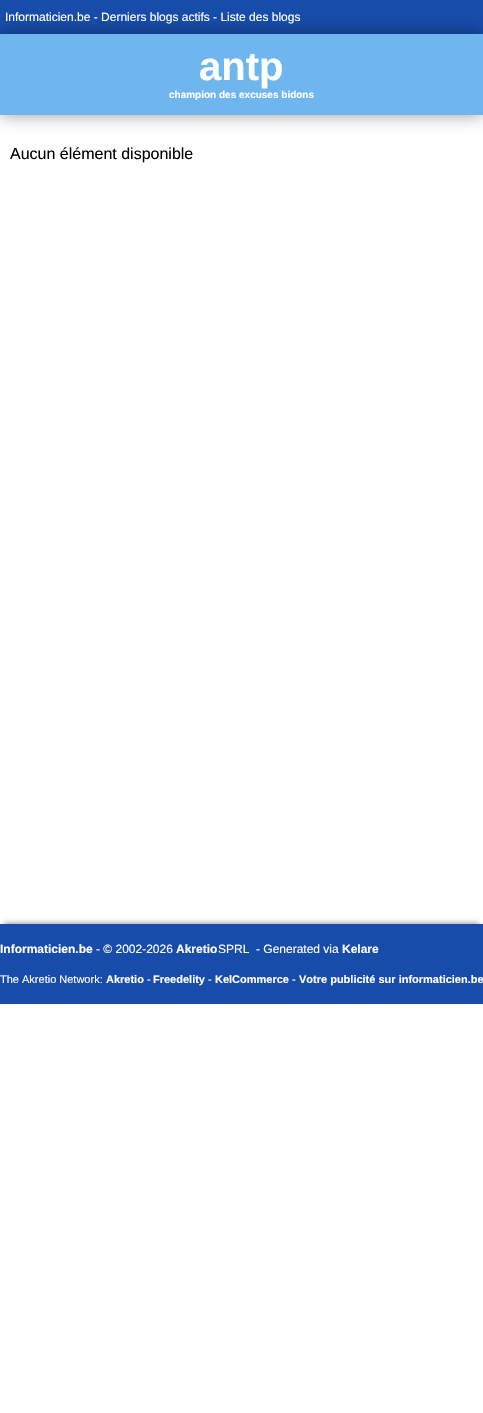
void draw(SkCanvas* canvas) {
    SkPaint paint;
    paint.setAntiAlias(true);
    auto face = [&](const char* family, int weight, float size, bool italic = false) {
        SkFontStyle style(weight, SkFontStyle::kNormal_Width,
            italic ? SkFontStyle::kItalic_Slant : SkFontStyle::kUpright_Slant);
        SkFont result(fontMgr->matchFamilyStyle(family, style), size);
        result.setSubpixel(true);
        return result;
    };
    auto write = [&](const char* s, float x, float y, const SkFont& font, SkColor color) {
        SkPaint ink(SkColor4f::FromColor(color));
        ink.setAntiAlias(true);
        canvas->drawString(s, x, y, font, ink);
    };
    auto block = [&](float x, float y, float w, float h, SkColor color) {
        SkPaint ink(SkColor4f::FromColor(color));
        ink.setAntiAlias(true);
        canvas->drawRect(SkRect::MakeXYWH(x, y, w, h), ink);
    };
    canvas->clear(SK_ColorWHITE);
    block(0, 0, 483, 34, SkColorSetRGB(23, 76, 170));
    paint.setColor(SkColorSetARGB(102, 0, 0, 0));
    paint.setMaskFilter(SkMaskFilter::MakeBlur(kNormal_SkBlurStyle, 8));
    canvas->drawRect(SkRect::MakeXYWH(0, 34, 483, 81), paint);
    paint.setMaskFilter(nullptr);
    auto kFont1 = face("Liberation Sans", 400, 12);
    write("Informaticien.be - Derniers blogs actifs - Liste des blogs", 5, 21, kFont1, SK_ColorWHITE);
    block(0, 34, 483, 81, SkColorSetRGB(111, 182, 238));
    auto kFont2 = face("Liberation Sans", 700, 40);
    write("antp", 199, 80, kFont2, SK_ColorWHITE);
    auto kFont3 = face("Liberation Sans", 700, 10);
    write("champion des excuses bidons", 169, 98, kFont3, SK_ColorWHITE);
    auto kFont4 = face("Liberation Sans", 400, 16);
    write("Aucun élément disponible", 10, 159, kFont4, SK_ColorBLACK);
    paint.setMaskFilter(SkMaskFilter::MakeBlur(kNormal_SkBlurStyle, 2.5f));
    canvas->drawRect(SkRect::MakeXYWH(4, 923, 475, 72), paint);
    paint.setMaskFilter(nullptr);
    block(0, 924, 483, 80, SkColorSetRGB(23, 76, 170));
    auto kFont5 = face("Liberation Sans", 700, 12);
    write("Informaticien.be", 0, 953, kFont5, SK_ColorWHITE);
    write("- © 2002-2026", 96, 953, kFont1, SK_ColorWHITE);
    write("Akretio", 176, 953, kFont5, SK_ColorWHITE);
    write("SPRL", 218, 953, kFont1, SK_ColorWHITE);
    write("- Generated via", 256, 953, kFont1, SK_ColorWHITE);
    write("Kelare", 342, 953, kFont5, SK_ColorWHITE);
    auto kFont6 = face("Liberation Sans", 400, 11);
    write("The Akretio Network:", 0, 983, kFont6, SK_ColorWHITE);
    auto kFont7 = face("Liberation Sans", 700, 11);
    write("Akretio", 106, 983, kFont7, SK_ColorWHITE);
    write("-", 147, 983, kFont6, SK_ColorWHITE);
    write("Freedelity", 153, 983, kFont7, SK_ColorWHITE);
    write("-", 208, 983, kFont6, SK_ColorWHITE);
    write("KelCommerce", 215, 983, kFont7, SK_ColorWHITE);
    write("-", 292, 983, kFont6, SK_ColorWHITE);
    write("Votre publicité sur informaticien.be", 299, 983, kFont7, SK_ColorWHITE);
}
